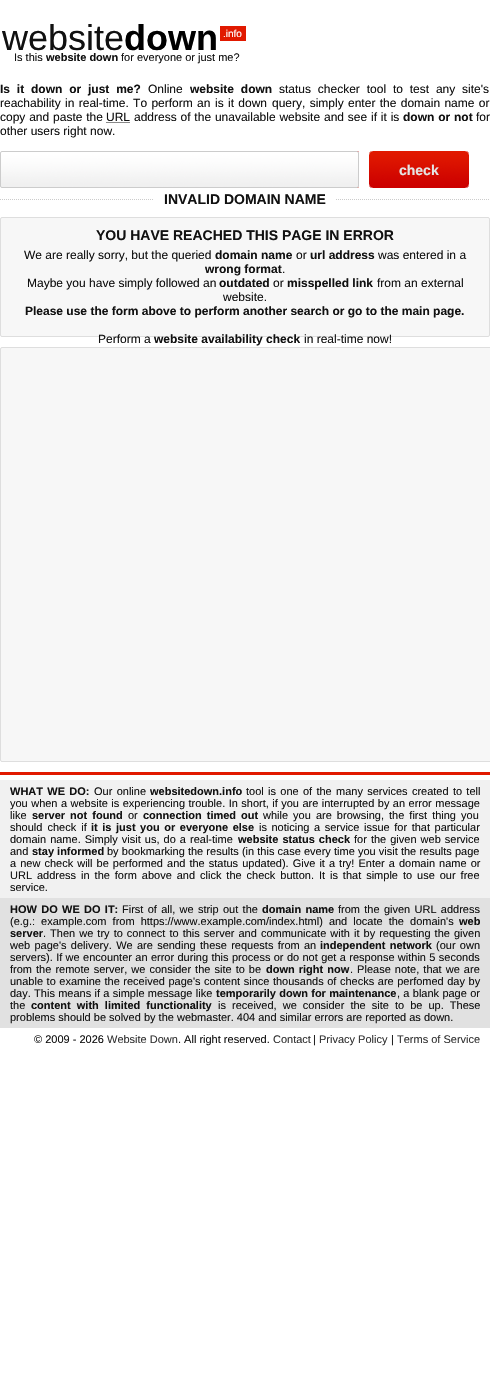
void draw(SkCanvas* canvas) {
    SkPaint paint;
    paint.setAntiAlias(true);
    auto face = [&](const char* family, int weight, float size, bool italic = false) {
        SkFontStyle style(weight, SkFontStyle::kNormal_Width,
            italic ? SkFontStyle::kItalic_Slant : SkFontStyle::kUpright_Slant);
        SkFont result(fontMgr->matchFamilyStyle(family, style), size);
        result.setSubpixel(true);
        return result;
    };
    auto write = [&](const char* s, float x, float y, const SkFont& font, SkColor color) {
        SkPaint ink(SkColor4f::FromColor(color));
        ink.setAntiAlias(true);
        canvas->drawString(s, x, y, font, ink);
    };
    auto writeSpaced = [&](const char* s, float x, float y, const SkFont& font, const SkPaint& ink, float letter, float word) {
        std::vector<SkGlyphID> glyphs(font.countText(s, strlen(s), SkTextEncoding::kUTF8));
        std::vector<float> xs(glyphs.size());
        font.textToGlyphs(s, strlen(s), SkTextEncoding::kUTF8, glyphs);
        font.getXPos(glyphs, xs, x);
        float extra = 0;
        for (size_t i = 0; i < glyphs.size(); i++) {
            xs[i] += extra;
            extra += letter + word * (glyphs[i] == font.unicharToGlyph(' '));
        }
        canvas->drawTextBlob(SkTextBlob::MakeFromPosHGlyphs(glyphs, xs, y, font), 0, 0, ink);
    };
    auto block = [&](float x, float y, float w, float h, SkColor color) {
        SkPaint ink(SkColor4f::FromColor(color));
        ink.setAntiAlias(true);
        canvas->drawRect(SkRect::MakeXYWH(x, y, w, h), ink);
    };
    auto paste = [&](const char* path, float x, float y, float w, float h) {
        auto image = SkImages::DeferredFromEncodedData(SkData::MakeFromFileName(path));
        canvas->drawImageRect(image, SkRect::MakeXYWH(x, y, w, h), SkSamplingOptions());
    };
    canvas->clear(SK_ColorWHITE);
    auto kFont1 = face("Liberation Sans", 400, 36);
    write("website", 2, 50, kFont1, SkColorSetRGB(17, 17, 17));
    auto kFont2 = face("Liberation Sans", 700, 36);
    write("down", 124, 50, kFont2, SK_ColorBLACK);
    block(220, 26, 26, 15, SkColorSetRGB(225, 25, 0));
    auto kFont3 = face("Liberation Sans", 400, 10);
    write(".info", 223, 37, kFont3, SK_ColorWHITE);
    auto kFont4 = face("Liberation Sans", 400, 11);
    write("Is this", 14, 61, kFont4, SkColorSetRGB(17, 17, 17));
    auto kFont5 = face("Liberation Sans", 700, 11);
    write("website down", 46, 61, kFont5, SkColorSetRGB(17, 17, 17));
    write("for everyone or just me?", 121, 61, kFont4, SkColorSetRGB(17, 17, 17));
    auto kFont6 = face("Liberation Sans", 700, 12);
    paint.setColor(SkColorSetRGB(17, 17, 17));
    writeSpaced("Is it down or just me?", 0, 93, kFont6, paint, 0, 3.5f);
    auto kFont7 = face("Liberation Sans", 400, 12);
    write("Online", 148, 93, kFont7, SkColorSetRGB(17, 17, 17));
    writeSpaced("website down", 190, 93, kFont6, paint, 0, 3.5f);
    writeSpaced("status checker tool to test any site's", 279, 93, kFont7, paint, 0, 3.5f);
    writeSpaced("reachability in real-time. To perform an", 0, 107, kFont7, paint, 0, 1);
    writeSpaced("is it down", 215, 107, kFont7, paint, 0, 1);
    writeSpaced("query, simply enter the domain name or", 272, 107, kFont7, paint, 0, 1);
    writeSpaced("copy and paste the", 0, 121, kFont7, paint, 0, 0.5f);
    write("URL", 106, 121, kFont7, SkColorSetRGB(17, 17, 17));
    paint.setStyle(SkPaint::kStroke_Style);
    paint.setStrokeWidth(1);
    paint.setPathEffect(SkDashPathEffect::Make({{1, 1}}, 0));
    canvas->drawPath(SkPathBuilder().moveTo(106.5f, 122.5f).lineTo(130.5f, 122.5f).detach(), paint);
    paint.setPathEffect(nullptr);
    paint.setStyle(SkPaint::kFill_Style);
    writeSpaced("address of the unavailable website and see if it is", 134, 121, kFont7, paint, 0, 0.5f);
    writeSpaced("down or not", 403, 121, kFont6, paint, 0, 0.5f);
    write("for", 476, 121, kFont7, SkColorSetRGB(17, 17, 17));
    write("other users right now.", 0, 135, kFont7, SkColorSetRGB(17, 17, 17));
    paste("pic1.png", 0, 151, 359, 37);
    paint.setStyle(SkPaint::kStroke_Style);
    paint.setColor(SkColorSetRGB(204, 204, 204));
    canvas->drawRoundRect(SkRect::MakeXYWH(0.5f, 151.5f, 358, 36), 1.5f, 1.5f, paint);
    paste("pic2.png", 369, 151, 100, 37);
    auto kFont8 = face("Liberation Sans", 700, 14);
    write("check", 399, 175, kFont8, SkColorSetRGB(229, 229, 229));
    paste("pic3.png", 0, 199, 489, 1);
    block(154, 199, 181, 1, SK_ColorWHITE);
    write("INVALID DOMAIN NAME", 164, 204, kFont8, SkColorSetRGB(17, 17, 17));
    paint.setStyle(SkPaint::kFill_Style);
    paint.setColor(SkColorSetRGB(247, 247, 247));
    canvas->drawRoundRect(SkRect::MakeXYWH(0.5f, 217.5f, 489, 119), 1.5f, 1.5f, paint);
    paint.setStyle(SkPaint::kStroke_Style);
    paint.setColor(SkColorSetRGB(222, 222, 222));
    canvas->drawRoundRect(SkRect::MakeXYWH(0.5f, 217.5f, 489, 119), 1.5f, 1.5f, paint);
    write("YOU HAVE REACHED THIS PAGE IN ERROR", 96, 240, kFont8, SkColorSetRGB(17, 17, 17));
    write("We are really sorry, but the queried", 24, 259, kFont7, SkColorSetRGB(17, 17, 17));
    write("domain name", 215, 259, kFont6, SkColorSetRGB(17, 17, 17));
    write("or", 296, 259, kFont7, SkColorSetRGB(17, 17, 17));
    write("url address", 310, 259, kFont6, SkColorSetRGB(17, 17, 17));
    write("was entered in a", 378, 259, kFont7, SkColorSetRGB(17, 17, 17));
    write("wrong format", 205, 273, kFont6, SkColorSetRGB(17, 17, 17));
    write(".", 282, 273, kFont7, SkColorSetRGB(17, 17, 17));
    write("Maybe you have simply followed an", 27, 287, kFont7, SkColorSetRGB(17, 17, 17));
    write("outdated", 219, 287, kFont6, SkColorSetRGB(17, 17, 17));
    write("or", 273, 287, kFont7, SkColorSetRGB(17, 17, 17));
    write("misspelled link", 287, 287, kFont6, SkColorSetRGB(17, 17, 17));
    write("from an external", 377, 287, kFont7, SkColorSetRGB(17, 17, 17));
    write("website.", 223, 301, kFont7, SkColorSetRGB(17, 17, 17));
    write("Please use the form above to perform another search or go to the main page.", 25, 315, kFont6, SkColorSetRGB(17, 17, 17));
    write("Perform a", 98, 343, kFont7, SkColorSetRGB(17, 17, 17));
    write("website availability check", 154, 343, kFont6, SkColorSetRGB(17, 17, 17));
    write("in real-time now!", 304, 343, kFont7, SkColorSetRGB(17, 17, 17));
    paint.setStyle(SkPaint::kFill_Style);
    paint.setColor(SkColorSetRGB(247, 247, 247));
    canvas->drawRoundRect(SkRect::MakeXYWH(0.5f, 347.5f, 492, 414), 1.5f, 1.5f, paint);
    paint.setStyle(SkPaint::kStroke_Style);
    paint.setColor(SkColorSetRGB(222, 222, 222));
    canvas->drawRoundRect(SkRect::MakeXYWH(0.5f, 347.5f, 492, 414), 1.5f, 1.5f, paint);
    block(0, 772, 490, 3, SkColorSetRGB(225, 25, 0));
    block(0, 780, 490, 118, SkColorSetRGB(241, 241, 241));
    paint.setStyle(SkPaint::kFill_Style);
    paint.setColor(SkColorSetRGB(17, 17, 17));
    writeSpaced("WHAT WE DO:", 10, 795, kFont5, paint, 0, 1.25f);
    writeSpaced("Our online", 94, 795, kFont4, paint, 0, 1.25f);
    write("websitedown.info", 150, 795, kFont5, SkColorSetRGB(17, 17, 17));
    writeSpaced("tool is one of the many services created to tell", 246, 795, kFont4, paint, 0, 1.25f);
    writeSpaced("you when a website is experiencing trouble. In short, if you are interrupted by an error message", 10, 807, kFont4, paint, 0, 0.4f);
    write("like", 10, 819, kFont4, SkColorSetRGB(17, 17, 17));
    writeSpaced("server not found", 32, 819, kFont5, paint, 0, 2);
    write("or", 128, 819, kFont4, SkColorSetRGB(17, 17, 17));
    writeSpaced("connection timed out", 143, 819, kFont5, paint, 0, 2);
    writeSpaced("while you are browsing, the first thing you", 263, 819, kFont4, paint, 0, 2);
    writeSpaced("should check if", 10, 831, kFont4, paint, 0, 2);
    writeSpaced("it is just you or everyone else", 91, 831, kFont5, paint, 0, 1.5f);
    writeSpaced("is noticing a service issue for that particular", 259, 831, kFont4, paint, 0, 1.5f);
    writeSpaced("domain name. Simply visit us, do a real-time", 10, 843, kFont4, paint, 0, 1);
    writeSpaced("website status check", 238, 843, kFont5, paint, 0, 1);
    writeSpaced("for the given web service", 354, 843, kFont4, paint, 0, 1);
    write("and", 10, 855, kFont4, SkColorSetRGB(17, 17, 17));
    write("stay informed", 32, 855, kFont5, SkColorSetRGB(17, 17, 17));
    writeSpaced("by bookmarking the results (in this case every time you visit the results page", 107, 855, kFont4, paint, 0, 0.1f);
    writeSpaced("a new check will be performed and the status updated). Give it a try! Enter a domain name or", 10, 867, kFont4, paint, 0, 1);
    writeSpaced("URL address in the form above and click the check button. It is that simple to use our free", 10, 879, kFont4, paint, 0, 1.9f);
    write("service.", 10, 891, kFont4, SkColorSetRGB(17, 17, 17));
    block(0, 898, 490, 130, SkColorSetRGB(225, 225, 225));
    writeSpaced("HOW DO WE DO IT:", 10, 913, kFont5, paint, 0, 1.25f);
    writeSpaced("First of all, we strip out the", 122, 913, kFont4, paint, 0, 1.25f);
    writeSpaced("domain name", 262, 913, kFont5, paint, 0, 1.25f);
    writeSpaced("from the given URL address", 338, 913, kFont4, paint, 0, 1.25f);
    writeSpaced("(e.g.: example.com from https://www.example.com/index.html) and locate the domain's", 10, 925, kFont4, paint, 0, 3);
    write("web", 459, 925, kFont5, SkColorSetRGB(17, 17, 17));
    write("server", 10, 937, kFont5, SkColorSetRGB(17, 17, 17));
    writeSpaced(". Then we try to connect to this server and communicate with it by requesting the given", 43, 937, kFont4, paint, 0, 1);
    writeSpaced("web page's delivery. We are sending these requests from an", 10, 949, kFont4, paint, 0, 1.25f);
    writeSpaced("independent network", 320, 949, kFont5, paint, 0, 1.25f);
    writeSpaced("(our own", 436, 949, kFont4, paint, 0, 1.25f);
    writeSpaced("servers). If we encounter an error during this process or do not get a response within 5 seconds", 10, 961, kFont4, paint, 0, 0.3f);
    writeSpaced("from the remote server, we consider the site to be", 10, 973, kFont4, paint, 0, 1);
    writeSpaced("down right now", 266, 973, kFont5, paint, 0, 1);
    writeSpaced(". Please note, that we are", 350, 973, kFont4, paint, 0, 1);
    writeSpaced("unable to examine the received page's content since thousands of checks are perfomed day by", 10, 985, kFont4, paint, 0, 0.5f);
    writeSpaced("day. This means if a simple message like", 10, 997, kFont4, paint, 0, 0.25f);
    writeSpaced("temporarily down for maintenance", 216, 997, kFont5, paint, 0, 0.25f);
    writeSpaced(", a blank page or", 397, 997, kFont4, paint, 0, 0.25f);
    write("the", 10, 1009, kFont4, SkColorSetRGB(17, 17, 17));
    writeSpaced("content with limited functionality", 31, 1009, kFont5, paint, 0, 3);
    writeSpaced("is received, we consider the site to be up. These", 218, 1009, kFont4, paint, 0, 3);
    write("problems should be solved by the webmaster. 404 and similar errors are reported as down.", 10, 1021, kFont4, SkColorSetRGB(17, 17, 17));
    write("© 2009 - 2026", 34, 1043, kFont4, SkColorSetRGB(17, 17, 17));
    write("Website Down", 107, 1043, kFont4, SkColorSetRGB(51, 51, 51));
    write(". All right reserved.", 178, 1043, kFont4, SkColorSetRGB(17, 17, 17));
    write("Contact", 273, 1043, kFont4, SkColorSetRGB(51, 51, 51));
    write("|", 313, 1043, kFont4, SkColorSetRGB(17, 17, 17));
    write("Privacy Policy", 319, 1043, kFont4, SkColorSetRGB(51, 51, 51));
    write("|", 391, 1043, kFont4, SkColorSetRGB(17, 17, 17));
    write("Terms of Service", 397, 1043, kFont4, SkColorSetRGB(51, 51, 51));
}
